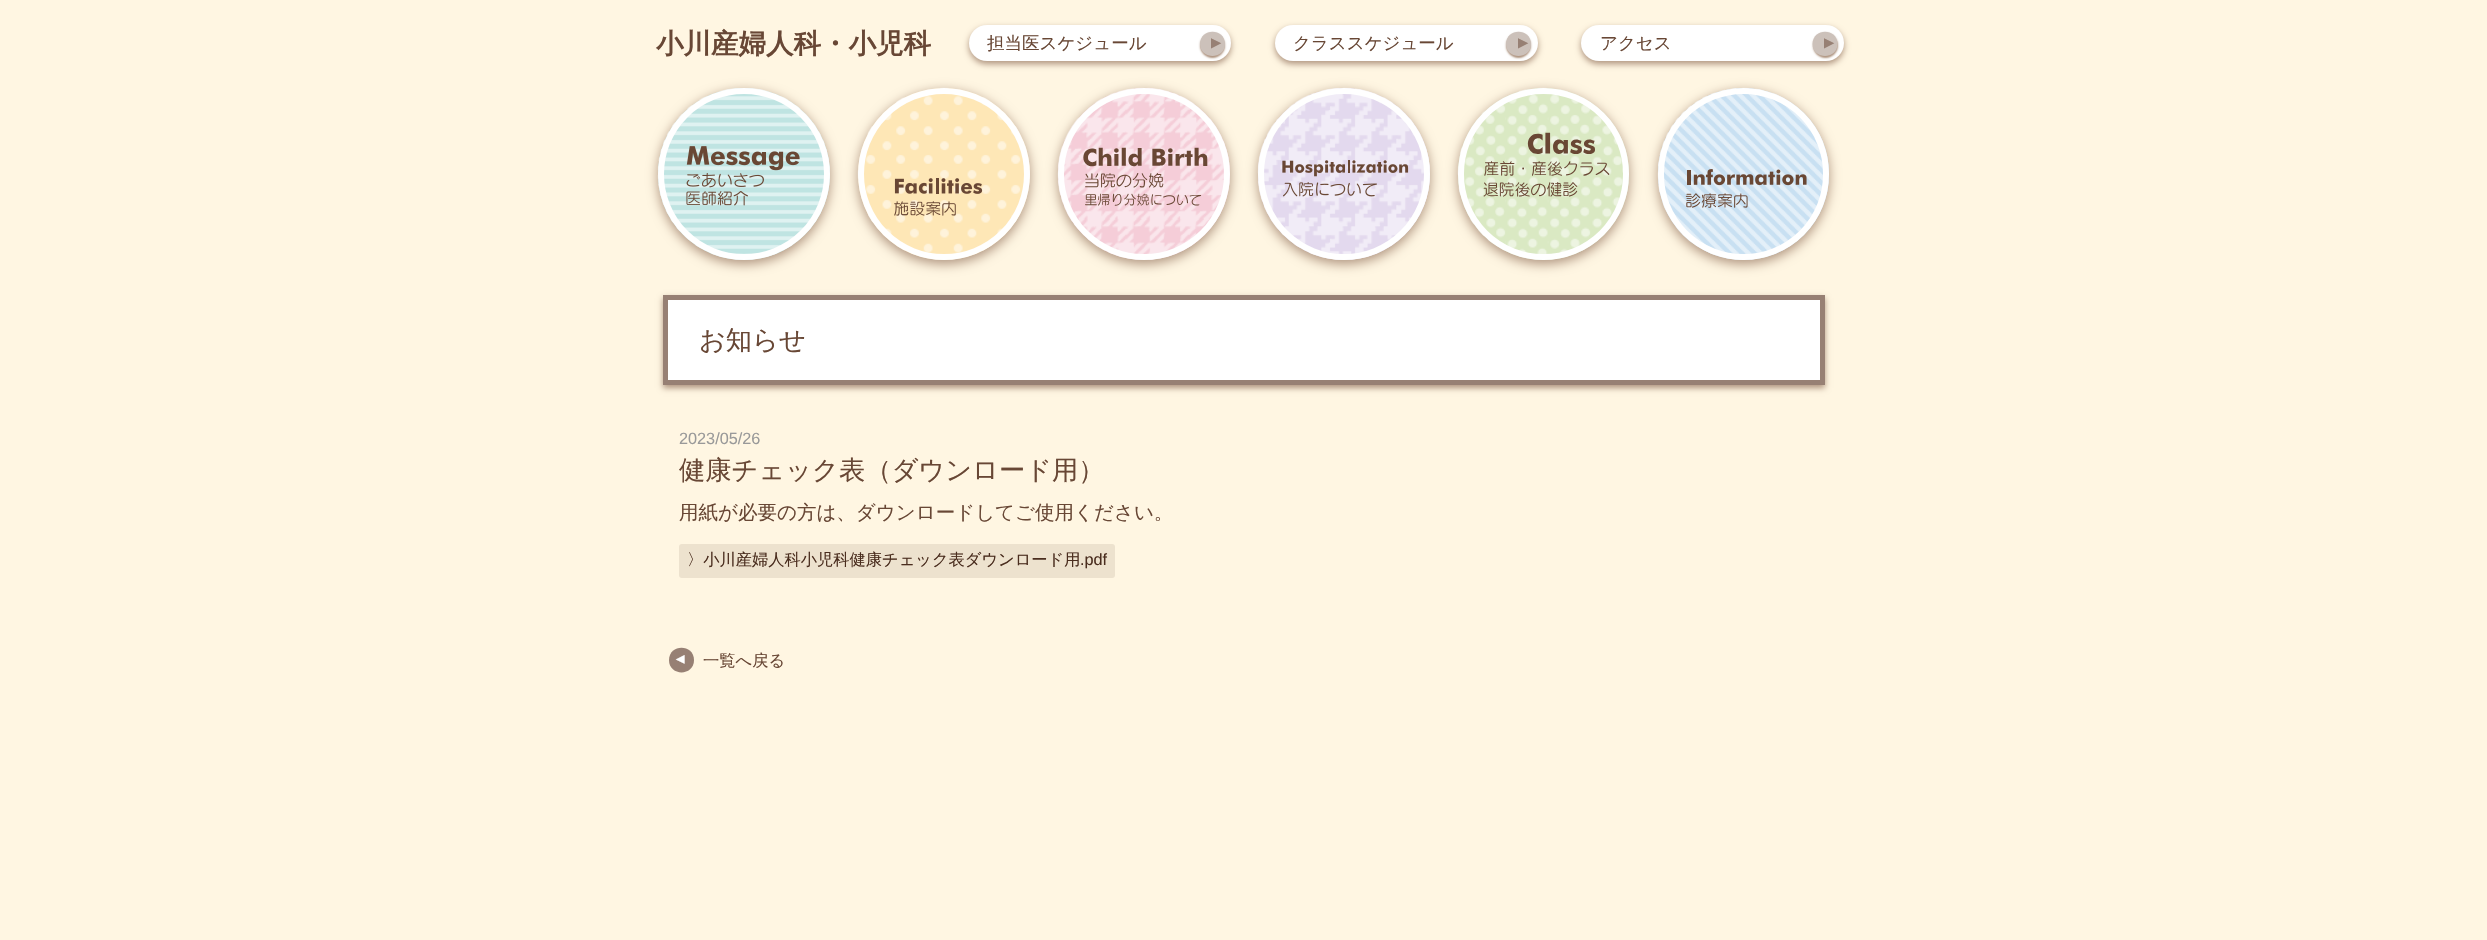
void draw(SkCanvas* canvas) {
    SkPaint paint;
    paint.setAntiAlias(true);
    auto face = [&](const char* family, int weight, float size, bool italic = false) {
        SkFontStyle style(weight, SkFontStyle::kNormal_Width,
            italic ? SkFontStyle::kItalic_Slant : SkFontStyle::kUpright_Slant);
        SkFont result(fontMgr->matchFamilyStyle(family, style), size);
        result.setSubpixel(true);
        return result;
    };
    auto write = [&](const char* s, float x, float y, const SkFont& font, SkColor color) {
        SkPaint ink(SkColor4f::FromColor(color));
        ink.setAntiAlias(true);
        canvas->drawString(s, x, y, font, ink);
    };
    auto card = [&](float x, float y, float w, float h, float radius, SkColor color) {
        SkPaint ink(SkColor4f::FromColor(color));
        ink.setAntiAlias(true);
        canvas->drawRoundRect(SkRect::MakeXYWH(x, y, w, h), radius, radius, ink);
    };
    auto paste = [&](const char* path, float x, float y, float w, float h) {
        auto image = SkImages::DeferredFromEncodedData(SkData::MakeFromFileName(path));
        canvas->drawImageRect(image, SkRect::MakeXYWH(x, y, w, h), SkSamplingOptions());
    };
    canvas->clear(SkColorSetRGB(255, 246, 226));
    auto kFont1 = face("WenQuanYi Zen Hei", 700, 27.5f);
    write("小川産婦人科・小児科", 656, 53, kFont1, SkColorSetRGB(104, 71, 53));
    paint.setColor(SkColorSetRGB(174, 147, 126));
    paint.setMaskFilter(SkMaskFilter::MakeBlur(kNormal_SkBlurStyle, 3));
    canvas->drawRoundRect(SkRect::MakeXYWH(969, 28, 262, 36), 18, 18, paint);
    paint.setMaskFilter(nullptr);
    card(969, 25, 262, 36, 18, SK_ColorWHITE);
    auto kFont2 = face("WenQuanYi Zen Hei", 500, 17.5f);
    write("担当医スケジュール", 987, 49, kFont2, SkColorSetRGB(104, 71, 53));
    paint.setMaskFilter(SkMaskFilter::MakeBlur(kNormal_SkBlurStyle, 1));
    canvas->drawRoundRect(SkRect::MakeXYWH(1200, 33, 25, 25), 12.5f, 12.5f, paint);
    paint.setMaskFilter(nullptr);
    paint.setColor(SkColorSetRGB(204, 193, 186));
    canvas->drawPath(SkPathBuilder().moveTo(1200, 44).cubicTo(1200, 27.5f, 1225, 27.5f, 1225, 44).cubicTo(1225, 60, 1200, 60, 1200, 44).close().detach(), paint);
    auto kFont3 = face("Liberation Sans", 400, 17.5f);
    canvas->save();
    canvas->rotate(-90, 1221, 52);
    write("▼", 1221, 52, kFont3, SkColorSetRGB(151, 128, 116));
    canvas->restore();
    paint.setColor(SkColorSetRGB(174, 147, 126));
    paint.setMaskFilter(SkMaskFilter::MakeBlur(kNormal_SkBlurStyle, 3));
    canvas->drawRoundRect(SkRect::MakeXYWH(1275, 28, 263, 36), 18, 18, paint);
    paint.setMaskFilter(nullptr);
    card(1275, 25, 263, 36, 18, SK_ColorWHITE);
    write("クラススケジュール", 1293, 49, kFont2, SkColorSetRGB(104, 71, 53));
    paint.setMaskFilter(SkMaskFilter::MakeBlur(kNormal_SkBlurStyle, 1));
    canvas->drawRoundRect(SkRect::MakeXYWH(1506, 33, 25, 25), 12.5f, 12.5f, paint);
    paint.setMaskFilter(nullptr);
    paint.setColor(SkColorSetRGB(204, 193, 186));
    canvas->drawPath(SkPathBuilder().moveTo(1506, 44).cubicTo(1506, 27.5f, 1531, 27.5f, 1531, 44).cubicTo(1531, 60, 1506, 60, 1506, 44).close().detach(), paint);
    canvas->save();
    canvas->rotate(-90, 1528, 52);
    write("▼", 1528, 52, kFont3, SkColorSetRGB(151, 128, 116));
    canvas->restore();
    paint.setColor(SkColorSetRGB(174, 147, 126));
    paint.setMaskFilter(SkMaskFilter::MakeBlur(kNormal_SkBlurStyle, 3));
    canvas->drawRoundRect(SkRect::MakeXYWH(1581, 28, 263, 36), 18, 18, paint);
    paint.setMaskFilter(nullptr);
    card(1581, 25, 263, 36, 18, SK_ColorWHITE);
    write("アクセス", 1600, 49, kFont2, SkColorSetRGB(104, 71, 53));
    paint.setMaskFilter(SkMaskFilter::MakeBlur(kNormal_SkBlurStyle, 1));
    canvas->drawRoundRect(SkRect::MakeXYWH(1813, 33, 25, 25), 12.5f, 12.5f, paint);
    paint.setMaskFilter(nullptr);
    paint.setColor(SkColorSetRGB(204, 193, 186));
    canvas->drawPath(SkPathBuilder().moveTo(1812.5f, 44).cubicTo(1812.5f, 27.5f, 1837.5f, 27.5f, 1837.5f, 44).cubicTo(1837.5f, 60, 1812.5f, 60, 1812.5f, 44).close().detach(), paint);
    canvas->save();
    canvas->rotate(-90, 1834, 52);
    write("▼", 1834, 52, kFont3, SkColorSetRGB(151, 128, 116));
    canvas->restore();
    paint.setColor(SkColorSetRGB(174, 147, 126));
    paint.setMaskFilter(SkMaskFilter::MakeBlur(kNormal_SkBlurStyle, 6));
    canvas->drawRoundRect(SkRect::MakeXYWH(658, 91, 172, 173), 86, 86, paint);
    paint.setMaskFilter(nullptr);
    paint.setColor(SkColorSetRGB(191, 228, 226));
    canvas->drawCircle(744, 174, 86, paint);
    paste("pic1.png", 657, 88, 173, 170);
    paint.setStyle(SkPaint::kStroke_Style);
    paint.setStrokeWidth(6);
    paint.setColor(SK_ColorWHITE);
    canvas->drawCircle(744, 174, 83, paint);
    paste("pic2.png", 686, 146, 114, 60);
    paint.setStyle(SkPaint::kFill_Style);
    paint.setColor(SkColorSetRGB(174, 147, 126));
    paint.setMaskFilter(SkMaskFilter::MakeBlur(kNormal_SkBlurStyle, 6));
    canvas->drawRoundRect(SkRect::MakeXYWH(858, 91, 172, 173), 86, 86, paint);
    paint.setMaskFilter(nullptr);
    paint.setColor(SkColorSetRGB(254, 231, 182));
    canvas->drawCircle(944, 174, 86, paint);
    paste("pic3.png", 857, 87, 173, 173);
    paint.setStyle(SkPaint::kStroke_Style);
    paint.setColor(SK_ColorWHITE);
    canvas->drawCircle(944, 174, 83, paint);
    paste("pic4.png", 894, 178, 89, 38);
    paint.setStyle(SkPaint::kFill_Style);
    paint.setColor(SkColorSetRGB(174, 147, 126));
    paint.setMaskFilter(SkMaskFilter::MakeBlur(kNormal_SkBlurStyle, 6));
    canvas->drawRoundRect(SkRect::MakeXYWH(1058, 91, 172, 173), 86, 86, paint);
    paint.setMaskFilter(nullptr);
    paint.setColor(SkColorSetRGB(245, 205, 216));
    canvas->drawCircle(1144, 174, 86, paint);
    paste("pic5.png", 1057, 87, 173, 173);
    paint.setStyle(SkPaint::kStroke_Style);
    paint.setColor(SK_ColorWHITE);
    canvas->drawCircle(1144, 174, 83, paint);
    paste("pic6.png", 1083, 147, 125, 59);
    paint.setStyle(SkPaint::kFill_Style);
    paint.setColor(SkColorSetRGB(174, 147, 126));
    paint.setMaskFilter(SkMaskFilter::MakeBlur(kNormal_SkBlurStyle, 6));
    canvas->drawRoundRect(SkRect::MakeXYWH(1258, 91, 172, 173), 86, 86, paint);
    paint.setMaskFilter(nullptr);
    paint.setColor(SkColorSetRGB(227, 217, 238));
    canvas->drawCircle(1344, 174, 86, paint);
    paste("pic7.png", 1257, 87, 173, 173);
    paint.setStyle(SkPaint::kStroke_Style);
    paint.setColor(SK_ColorWHITE);
    canvas->drawCircle(1344, 174, 83, paint);
    paste("pic8.png", 1282, 160, 127, 37);
    paint.setStyle(SkPaint::kFill_Style);
    paint.setColor(SkColorSetRGB(174, 147, 126));
    paint.setMaskFilter(SkMaskFilter::MakeBlur(kNormal_SkBlurStyle, 6));
    canvas->drawRoundRect(SkRect::MakeXYWH(1458, 91, 171, 173), 85.5f, 85.5f, paint);
    paint.setMaskFilter(nullptr);
    card(1458, 88, 171, 172, 85.5f, SkColorSetRGB(218, 233, 195));
    paste("pic9.png", 1457, 87, 172, 171);
    paint.setStyle(SkPaint::kStroke_Style);
    paint.setColor(SK_ColorWHITE);
    canvas->drawRoundRect(SkRect::MakeXYWH(1461, 91, 165, 166), 82.5f, 82.5f, paint);
    paste("pic10.png", 1483, 132, 127, 65);
    paint.setStyle(SkPaint::kFill_Style);
    paint.setColor(SkColorSetRGB(174, 147, 126));
    paint.setMaskFilter(SkMaskFilter::MakeBlur(kNormal_SkBlurStyle, 6));
    canvas->drawRoundRect(SkRect::MakeXYWH(1658, 91, 171, 173), 85.5f, 85.5f, paint);
    paint.setMaskFilter(nullptr);
    card(1658, 88, 171, 172, 85.5f, SkColorSetRGB(200, 224, 242));
    paste("pic11.png", 1657, 87, 172, 173);
    paint.setStyle(SkPaint::kStroke_Style);
    paint.setColor(SK_ColorWHITE);
    canvas->drawRoundRect(SkRect::MakeXYWH(1661, 91, 165, 166), 82.5f, 82.5f, paint);
    paste("pic12.png", 1685, 169, 122, 39);
    paint.setStyle(SkPaint::kFill_Style);
    paint.setColor(SkColorSetRGB(174, 147, 126));
    paint.setMaskFilter(SkMaskFilter::MakeBlur(kNormal_SkBlurStyle, 3));
    canvas->drawRect(SkRect::MakeXYWH(663, 298, 1162, 90), paint);
    paint.setMaskFilter(nullptr);
    paint.setColor(SK_ColorWHITE);
    canvas->drawRect(SkRect::MakeXYWH(665.5f, 297.5f, 1157, 85), paint);
    paint.setStyle(SkPaint::kStroke_Style);
    paint.setStrokeWidth(5);
    paint.setColor(SkColorSetRGB(151, 128, 116));
    canvas->drawRect(SkRect::MakeXYWH(665.5f, 297.5f, 1157, 85), paint);
    auto kFont4 = face("WenQuanYi Zen Hei", 500, 26.25f);
    write("お知らせ", 699, 349, kFont4, SkColorSetRGB(104, 71, 53));
    auto kFont5 = face("Liberation Sans", 400, 16.25f);
    write("2023/05/26", 679, 444, kFont5, SkColorSetRGB(153, 153, 153));
    write("健康チェック表（ダウンロード用）", 679, 479, kFont4, SkColorSetRGB(104, 71, 53));
    auto kFont6 = face("WenQuanYi Zen Hei", 500, 19.5f);
    write("用紙が必要の方は、ダウンロードしてご使用ください。", 679, 519, kFont6, SkColorSetRGB(104, 71, 53));
    card(679, 544, 436, 34, 3, SkColorSetRGB(237, 226, 206));
    auto kFont7 = face("WenQuanYi Zen Hei", 500, 16.25f);
    write("〉小川産婦人科小児科健康チェック表ダウンロード用", 687, 565, kFont7, SkColorSetRGB(74, 45, 30));
    write(".pdf", 1080, 565, kFont5, SkColorSetRGB(74, 45, 30));
    paint.setStyle(SkPaint::kFill_Style);
    canvas->drawPath(SkPathBuilder().moveTo(694, 660).cubicTo(694, 676.5f, 669, 676.5f, 669, 660).cubicTo(669, 643.5f, 694, 643.5f, 694, 660).close().detach(), paint);
    auto kFont8 = face("Liberation Sans", 400, 15);
    canvas->save();
    canvas->rotate(90, 676, 652);
    write("▼", 676, 652, kFont8, SK_ColorWHITE);
    canvas->restore();
    write("一覧へ戻る", 703, 666, kFont7, SkColorSetRGB(104, 71, 53));
}
